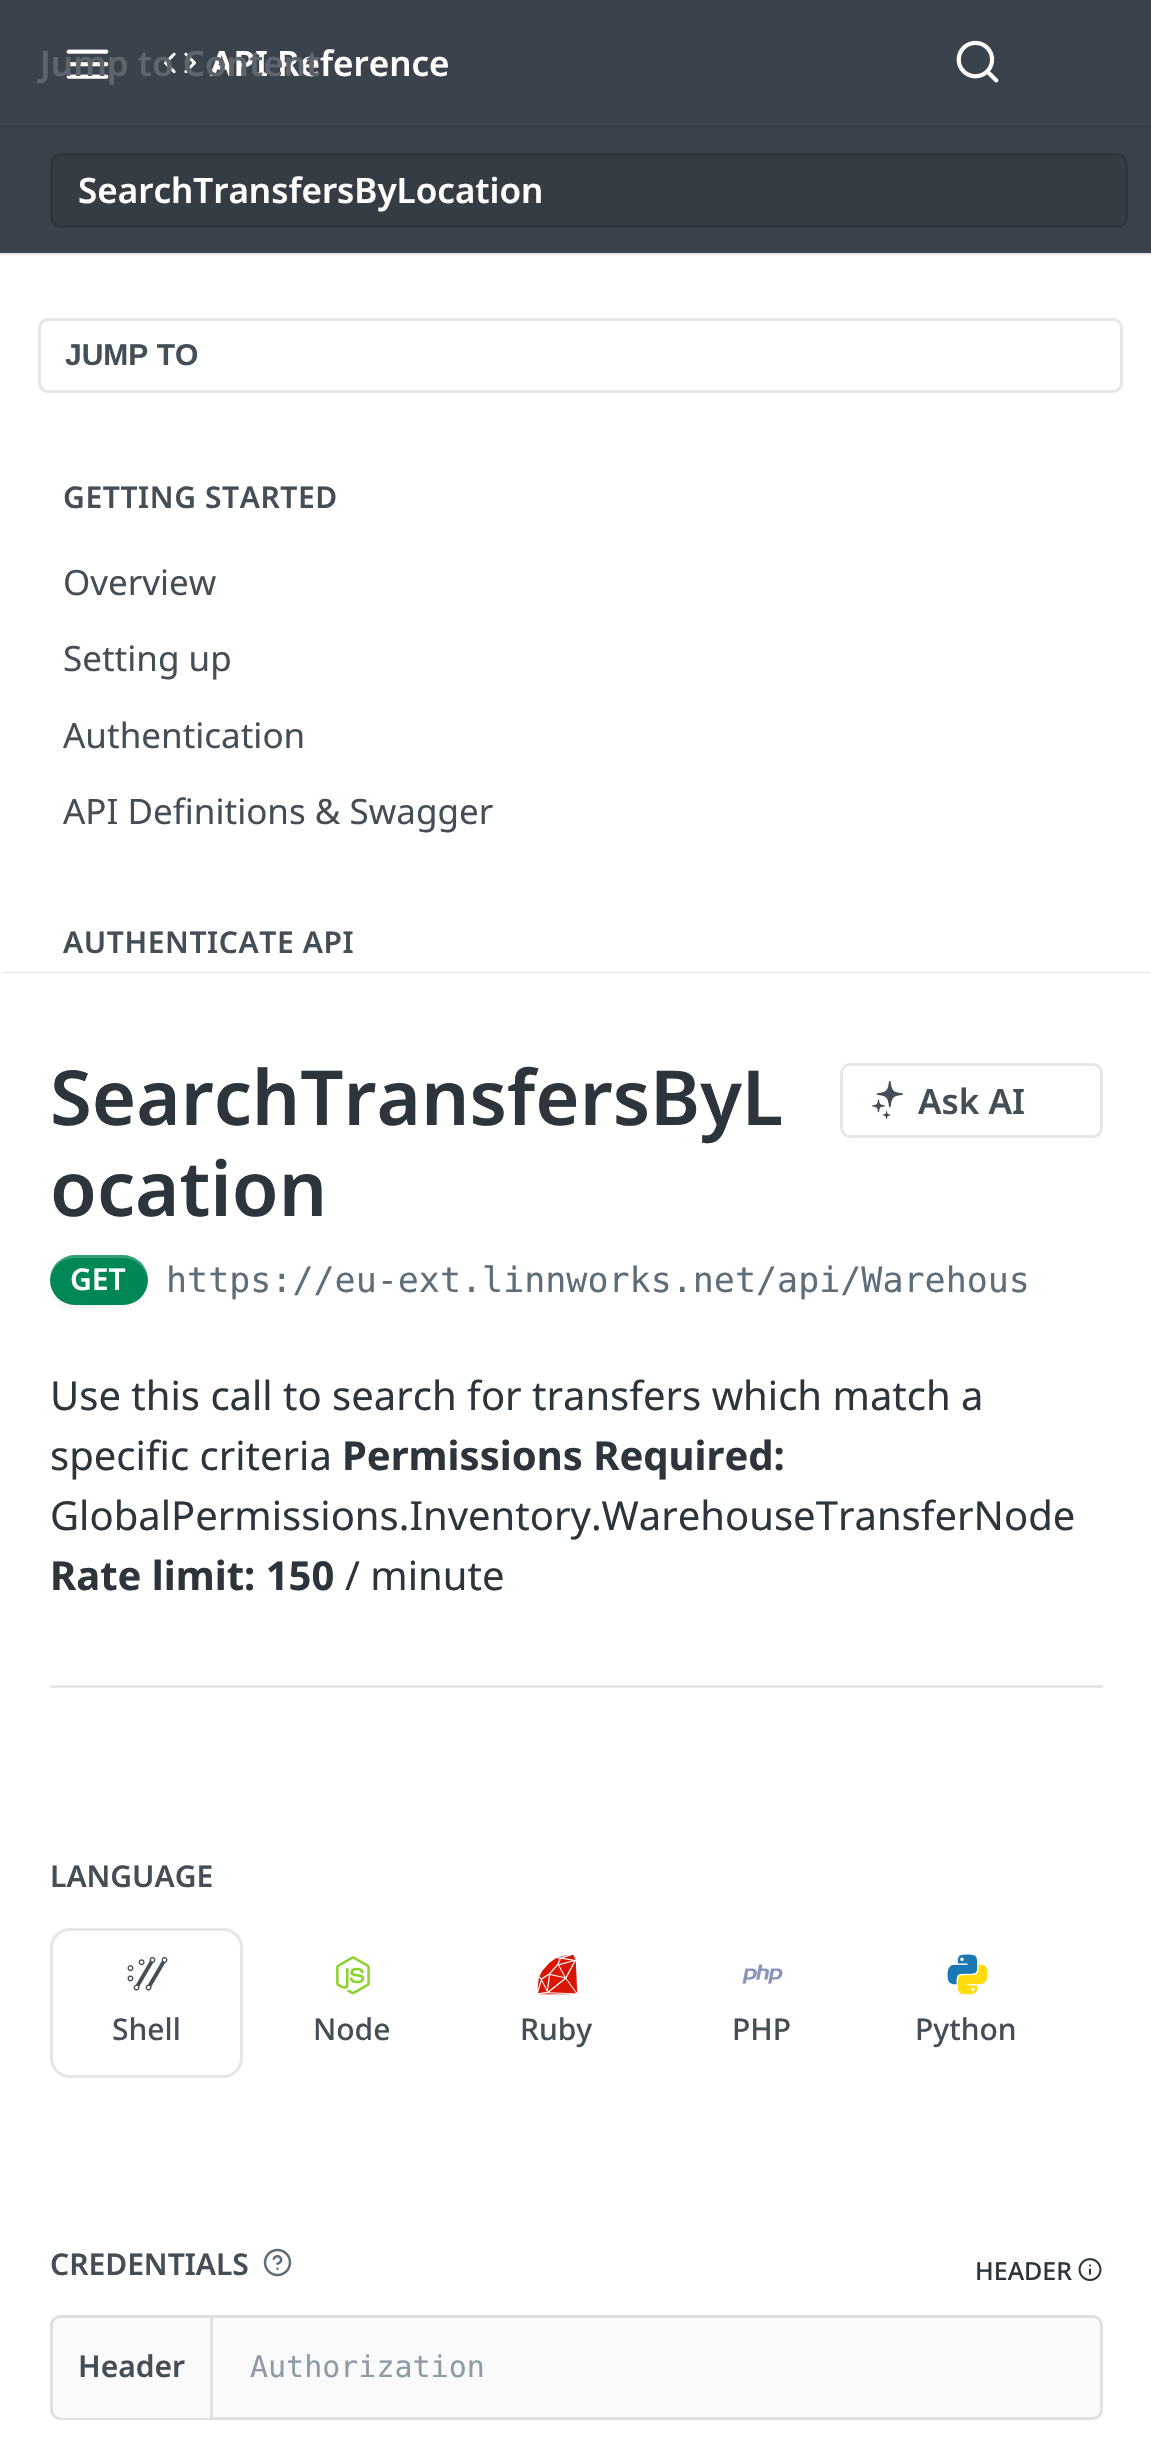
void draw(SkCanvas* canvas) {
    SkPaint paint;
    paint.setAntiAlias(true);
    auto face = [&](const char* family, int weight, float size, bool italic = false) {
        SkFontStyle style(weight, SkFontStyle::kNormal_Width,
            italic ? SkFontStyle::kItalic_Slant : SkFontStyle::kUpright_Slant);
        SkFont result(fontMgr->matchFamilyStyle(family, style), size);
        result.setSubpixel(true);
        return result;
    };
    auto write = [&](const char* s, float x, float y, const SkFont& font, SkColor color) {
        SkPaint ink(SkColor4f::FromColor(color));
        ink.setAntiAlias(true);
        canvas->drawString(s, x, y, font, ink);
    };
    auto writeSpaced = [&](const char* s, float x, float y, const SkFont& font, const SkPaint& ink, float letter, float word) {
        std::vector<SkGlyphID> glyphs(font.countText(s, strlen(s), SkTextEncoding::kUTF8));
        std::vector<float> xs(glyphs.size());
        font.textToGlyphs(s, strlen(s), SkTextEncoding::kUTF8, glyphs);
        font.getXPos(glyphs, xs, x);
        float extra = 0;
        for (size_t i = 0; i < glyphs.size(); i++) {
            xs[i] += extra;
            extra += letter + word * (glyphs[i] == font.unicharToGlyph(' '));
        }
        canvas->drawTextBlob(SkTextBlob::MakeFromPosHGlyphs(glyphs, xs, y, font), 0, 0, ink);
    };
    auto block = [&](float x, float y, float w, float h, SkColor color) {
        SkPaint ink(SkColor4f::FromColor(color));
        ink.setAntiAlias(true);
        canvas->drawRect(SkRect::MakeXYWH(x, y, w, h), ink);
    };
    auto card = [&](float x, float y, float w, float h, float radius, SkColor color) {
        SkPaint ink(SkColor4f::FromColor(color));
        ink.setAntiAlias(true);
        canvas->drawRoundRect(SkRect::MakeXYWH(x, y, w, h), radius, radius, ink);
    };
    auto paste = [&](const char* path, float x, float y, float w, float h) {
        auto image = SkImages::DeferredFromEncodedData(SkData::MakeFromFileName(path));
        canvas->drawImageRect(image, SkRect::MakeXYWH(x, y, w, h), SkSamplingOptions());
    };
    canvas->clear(SK_ColorWHITE);
    paint.setColor(SkColorSetRGB(230, 230, 230));
    canvas->drawPath(SkPathBuilder().moveTo(0, 252).lineTo(0, 255).lineTo(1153, 255).lineTo(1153, 3).lineTo(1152, 3).lineTo(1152, 252).close().detach(), paint);
    block(0, 0, 1151, 253, SkColorSetRGB(58, 67, 76));
    block(0, 125, 1151, 3, SkColorSetRGB(52, 60, 68));
    paste("pic1.png", 66, 49, 43, 30);
    paste("pic2.png", 164, 52, 32, 22);
    auto kFont1 = face("Noto Sans", 600, 35);
    write("API Reference", 210, 76, kFont1, SK_ColorWHITE);
    write("Jump to Content", 40, 76, kFont1, SkColorSetRGB(94, 101, 108));
    paste("pic3.png", 956, 40, 43, 43);
    card(50, 153, 1078, 75, 10, SkColorSetRGB(52, 60, 68));
    paint.setStyle(SkPaint::kStroke_Style);
    paint.setStrokeWidth(3);
    paint.setColor(SkColorSetARGB(26, 0, 0, 0));
    canvas->drawRoundRect(SkRect::MakeXYWH(51.5f, 154.5f, 1075, 72), 8.5f, 8.5f, paint);
    write("SearchTransfersByLocation", 78, 203, kFont1, SK_ColorWHITE);
    paint.setStyle(SkPaint::kFill_Style);
    paint.setColor(SkColorSetRGB(230, 230, 230));
    canvas->drawPath(SkPathBuilder().moveTo(3, 972).lineTo(3, 973).lineTo(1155, 973).lineTo(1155, 253).lineTo(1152, 253).lineTo(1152, 972).close().detach(), paint);
    paint.setStyle(SkPaint::kStroke_Style);
    canvas->drawRoundRect(SkRect::MakeXYWH(39.5f, 319.5f, 1082, 72), 8.5f, 8.5f, paint);
    auto kFont2 = face("Liberation Sans", 700, 30);
    write("JUMP TO", 65, 365, kFont2, SkColorSetRGB(67, 78, 86));
    auto kFont3 = face("Noto Sans", 600, 30);
    paint.setStyle(SkPaint::kFill_Style);
    paint.setColor(SkColorSetRGB(67, 78, 86));
    writeSpaced("GETTING STARTED", 63, 508, kFont3, paint, 0.6f, 0);
    auto kFont4 = face("Noto Sans", 400, 35);
    write("Overview", 63, 595, kFont4, SkColorSetRGB(67, 78, 86));
    write("Setting up", 63, 671, kFont4, SkColorSetRGB(67, 78, 86));
    write("Authentication", 63, 748, kFont4, SkColorSetRGB(67, 78, 86));
    write("API Definitions & Swagger", 63, 824, kFont4, SkColorSetRGB(67, 78, 86));
    writeSpaced("AUTHENTICATE API", 63, 953, kFont3, paint, 0.6f, 0);
    block(50, 1685, 1053, 3, SkColorSetRGB(230, 230, 230));
    auto kFont5 = face("Noto Sans", 600, 76);
    write("SearchTransfersByL", 50, 1125, kFont5, SkColorSetRGB(43, 53, 59));
    write("ocation", 50, 1216, kFont5, SkColorSetRGB(43, 53, 59));
    paint.setStyle(SkPaint::kStroke_Style);
    paint.setColor(SkColorSetRGB(230, 230, 230));
    canvas->drawRoundRect(SkRect::MakeXYWH(841.5f, 1064.5f, 260, 72), 8.5f, 8.5f, paint);
    paste("pic4.png", 872, 1081, 31, 39);
    write("Ask AI", 918, 1114, kFont1, SkColorSetRGB(67, 78, 86));
    paint.setStyle(SkPaint::kFill_Style);
    paint.setColor(SkColorSetARGB(13, 0, 0, 0));
    paint.setMaskFilter(SkMaskFilter::MakeBlur(kNormal_SkBlurStyle, 2.5f));
    canvas->drawRoundRect(SkRect::MakeXYWH(50, 1258, 98, 50), 25, 25, paint);
    paint.setMaskFilter(nullptr);
    card(50, 1255, 98, 50, 25, SkColorSetRGB(0, 135, 86));
    paint.setColor(SkColorSetARGB(51, 255, 255, 255));
    canvas->drawPath(SkPathBuilder().moveTo(75, 1258).lineTo(122, 1258).cubicTo(136, 1258, 147, 1268, 148, 1281).lineTo(148, 1280).cubicTo(148, 1266, 137, 1255, 123, 1255).lineTo(75, 1255).cubicTo(61, 1255, 50, 1266, 50, 1280).lineTo(50, 1281).cubicTo(51, 1268, 61, 1258, 75, 1258).close().detach(), paint);
    write("GET", 70, 1290, kFont3, SK_ColorWHITE);
    auto kFont6 = face("DejaVu Sans Mono", 400, 35);
    write("https://eu-ext.linnworks.net/api/Warehous", 166, 1292, kFont6, SkColorSetRGB(93, 109, 121));
    auto kFont7 = face("Noto Sans", 400, 40);
    write("Use this call to search for transfers which match a", 50, 1410, kFont7, SkColorSetRGB(43, 53, 59));
    write("specific criteria", 50, 1470, kFont7, SkColorSetRGB(43, 53, 59));
    auto kFont8 = face("Noto Sans", 700, 40);
    write("Permissions Required:", 342, 1470, kFont8, SkColorSetRGB(43, 53, 59));
    write("GlobalPermissions.Inventory.WarehouseTransferNode", 50, 1530, kFont7, SkColorSetRGB(43, 53, 59));
    write("Rate limit: 150", 50, 1590, kFont8, SkColorSetRGB(43, 53, 59));
    write("/ minute", 345, 1590, kFont7, SkColorSetRGB(43, 53, 59));
    write("LANGUAGE", 50, 1887, kFont3, SkColorSetRGB(67, 78, 86));
    paint.setStyle(SkPaint::kStroke_Style);
    paint.setColor(SkColorSetRGB(230, 230, 230));
    canvas->drawRoundRect(SkRect::MakeXYWH(51.5f, 1929.5f, 190, 147), 18.5f, 18.5f, paint);
    paste("pic5.png", 127, 1957, 41, 34);
    auto kFont9 = face("Noto Sans", 500, 30);
    write("Shell", 112, 2040, kFont9, SkColorSetRGB(67, 78, 86));
    paste("pic6.png", 336, 1956, 34, 39);
    write("Node", 313, 2040, kFont9, SkColorSetRGB(67, 78, 86));
    paste("pic7.png", 537, 1954, 41, 41);
    write("Ruby", 520, 2040, kFont9, SkColorSetRGB(67, 78, 86));
    paste("pic8.png", 742, 1964, 41, 20);
    write("PHP", 732, 2040, kFont9, SkColorSetRGB(67, 78, 86));
    paste("pic9.png", 947, 1954, 31, 31);
    paste("pic10.png", 957, 1964, 31, 31);
    write("Python", 915, 2040, kFont9, SkColorSetRGB(67, 78, 86));
    write("CREDENTIALS", 50, 2275, kFont3, SkColorSetRGB(67, 78, 86));
    paste("pic11.png", 263, 2248, 29, 29);
    auto kFont10 = face("Noto Sans", 500, 25);
    write("HEADER", 975, 2280, kFont10, SkColorSetRGB(43, 53, 59));
    paste("pic12.png", 1078, 2258, 24, 23);
    card(50, 2315, 1053, 105, 10, SkColorSetRGB(249, 250, 251));
    paint.setColor(SkColorSetARGB(26, 0, 0, 0));
    canvas->drawRoundRect(SkRect::MakeXYWH(51.5f, 2316.5f, 1050, 102), 8.5f, 8.5f, paint);
    paint.setStyle(SkPaint::kFill_Style);
    paint.setColor(SkColorSetRGB(249, 250, 251));
    canvas->drawPath(SkPathBuilder().moveTo(63, 2318).lineTo(213, 2318).lineTo(213, 2418).lineTo(63, 2418).cubicTo(57.5f, 2418, 53, 2413.5f, 53, 2408).lineTo(53, 2328).cubicTo(53, 2322.5f, 57.5f, 2318, 63, 2318).close().detach(), paint);
    block(210, 2318, 3, 100, SkColorSetRGB(224, 225, 226));
    write("Header", 78, 2377, kFont3, SkColorSetRGB(67, 78, 86));
    auto kFont11 = face("DejaVu Sans Mono", 400, 30);
    write("Authorization", 250, 2377, kFont11, SkColorSetRGB(140, 155, 166));
}
